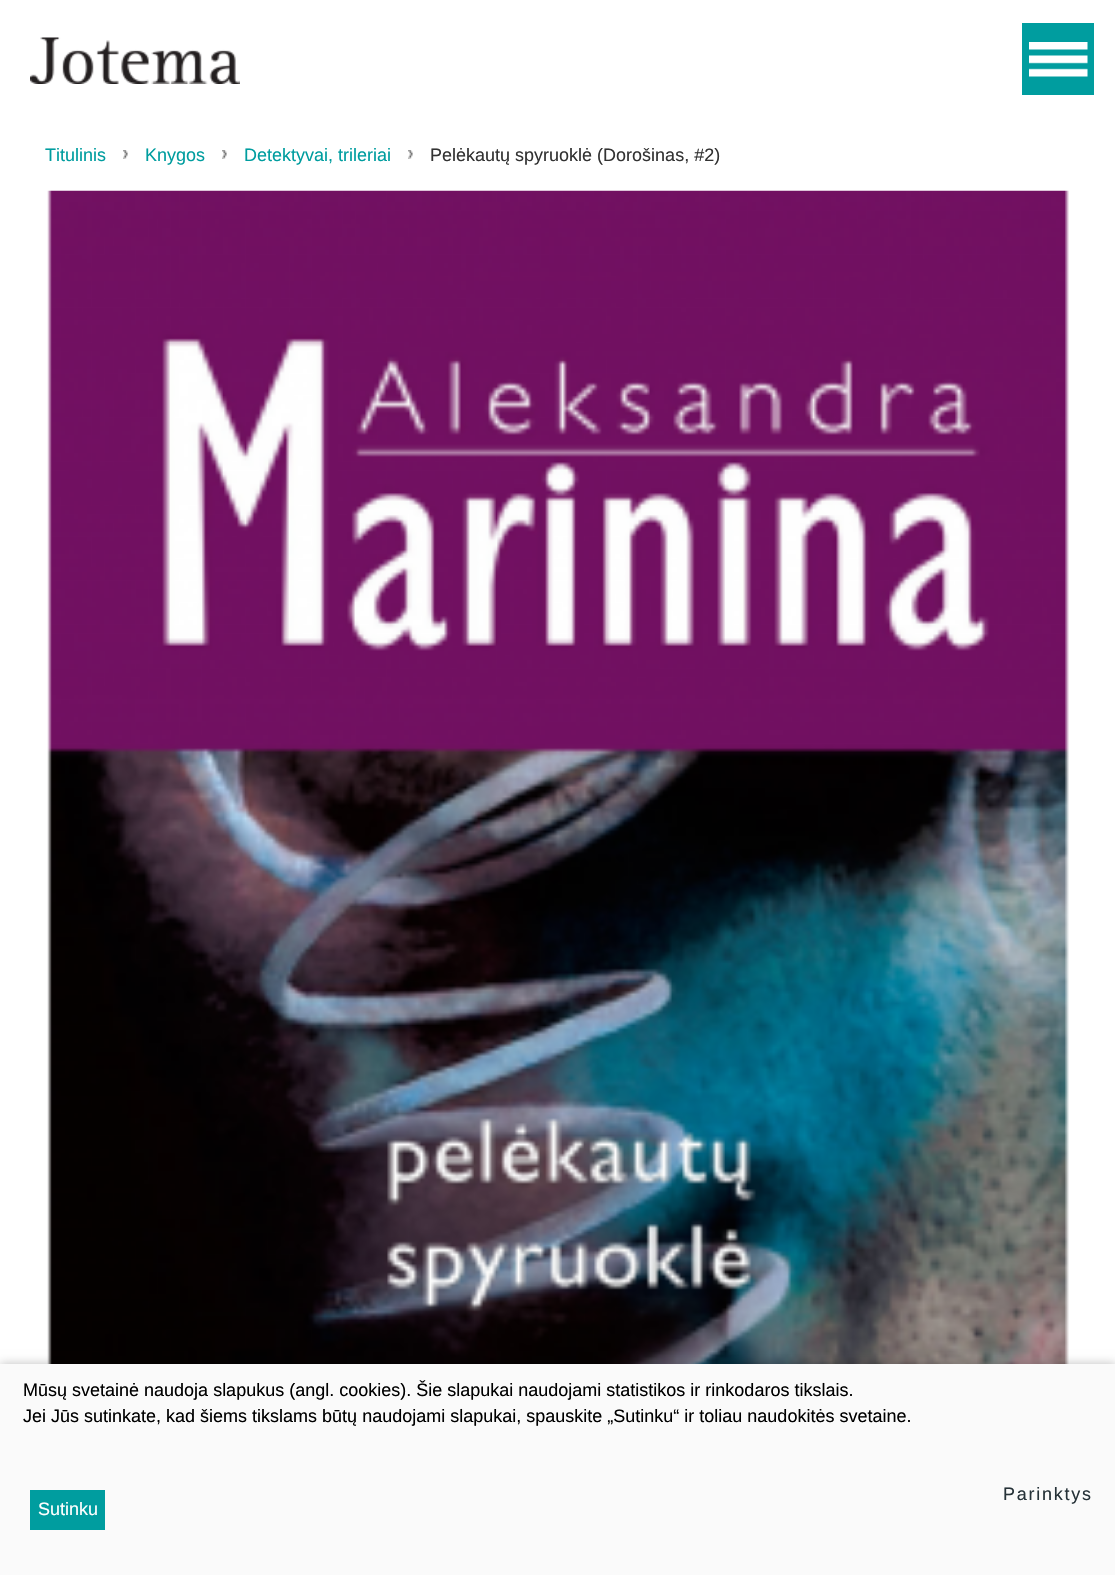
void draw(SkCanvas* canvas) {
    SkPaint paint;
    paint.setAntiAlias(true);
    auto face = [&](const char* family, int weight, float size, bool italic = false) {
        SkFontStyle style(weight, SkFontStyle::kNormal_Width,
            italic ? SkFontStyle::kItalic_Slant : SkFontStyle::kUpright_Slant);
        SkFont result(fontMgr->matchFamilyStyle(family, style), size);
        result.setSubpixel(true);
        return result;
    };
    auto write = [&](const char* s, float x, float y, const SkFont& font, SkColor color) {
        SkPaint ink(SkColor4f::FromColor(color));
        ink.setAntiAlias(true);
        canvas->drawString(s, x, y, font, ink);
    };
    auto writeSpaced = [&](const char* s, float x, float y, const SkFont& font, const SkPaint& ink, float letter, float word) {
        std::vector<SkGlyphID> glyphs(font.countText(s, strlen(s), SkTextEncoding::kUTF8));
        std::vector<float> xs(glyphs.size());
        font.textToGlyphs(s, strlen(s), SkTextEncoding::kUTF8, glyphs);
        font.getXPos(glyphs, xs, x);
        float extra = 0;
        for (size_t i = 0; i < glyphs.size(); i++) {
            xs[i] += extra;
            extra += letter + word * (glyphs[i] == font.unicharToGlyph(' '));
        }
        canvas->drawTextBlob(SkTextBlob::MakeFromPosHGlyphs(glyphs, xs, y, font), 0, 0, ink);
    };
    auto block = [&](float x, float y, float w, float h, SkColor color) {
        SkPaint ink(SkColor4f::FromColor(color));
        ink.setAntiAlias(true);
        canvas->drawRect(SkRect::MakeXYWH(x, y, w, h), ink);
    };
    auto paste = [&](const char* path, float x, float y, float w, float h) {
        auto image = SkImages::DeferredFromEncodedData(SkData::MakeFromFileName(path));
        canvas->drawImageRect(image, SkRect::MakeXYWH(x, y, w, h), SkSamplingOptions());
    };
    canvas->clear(SK_ColorWHITE);
    paste("pic1.png", 30, 37, 210, 47);
    block(1022, 23, 72, 72, SkColorSetRGB(0, 157, 159));
    paste("pic2.png", 1029, 42, 59, 35);
    auto kFont1 = face("Liberation Sans", 400, 18);
    write("Titulinis", 45, 161, kFont1, SkColorSetRGB(0, 157, 159));
    paste("pic3.png", 123, 150, 5, 9);
    write("Knygos", 145, 161, kFont1, SkColorSetRGB(0, 157, 159));
    paste("pic3.png", 222, 150, 5, 9);
    write("Detektyvai, trileriai", 244, 161, kFont1, SkColorSetRGB(0, 157, 159));
    paste("pic4.png", 408, 150, 5, 9);
    write("Pelėkautų spyruoklė (Dorošinas, #2)", 430, 161, kFont1, SkColorSetRGB(51, 51, 51));
    paste("pic5.png", 47, 190, 1022, 1174);
    paint.setColor(SkColorSetARGB(64, 0, 0, 0));
    paint.setMaskFilter(SkMaskFilter::MakeBlur(kNormal_SkBlurStyle, 5));
    canvas->drawRect(SkRect::MakeXYWH(0, 1364, 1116, 211), paint);
    paint.setMaskFilter(nullptr);
    block(0, 1364, 1115, 211, SkColorSetRGB(250, 250, 250));
    write("Mūsų svetainė naudoja slapukus (angl. cookies). Šie slapukai naudojami statistikos ir rinkodaros tikslais.", 23, 1396, kFont1, SK_ColorBLACK);
    write("Jei Jūs sutinkate, kad šiems tikslams būtų naudojami slapukai, spauskite „Sutinku“ ir toliau naudokitės svetaine.", 23, 1422, kFont1, SK_ColorBLACK);
    paint.setColor(SkColorSetRGB(38, 50, 56));
    writeSpaced("Parinktys", 1003, 1500, kFont1, paint, 1.75f, 0);
    block(30, 1490, 75, 40, SkColorSetRGB(0, 157, 159));
    write("Sutinku", 38, 1515, kFont1, SK_ColorWHITE);
}
